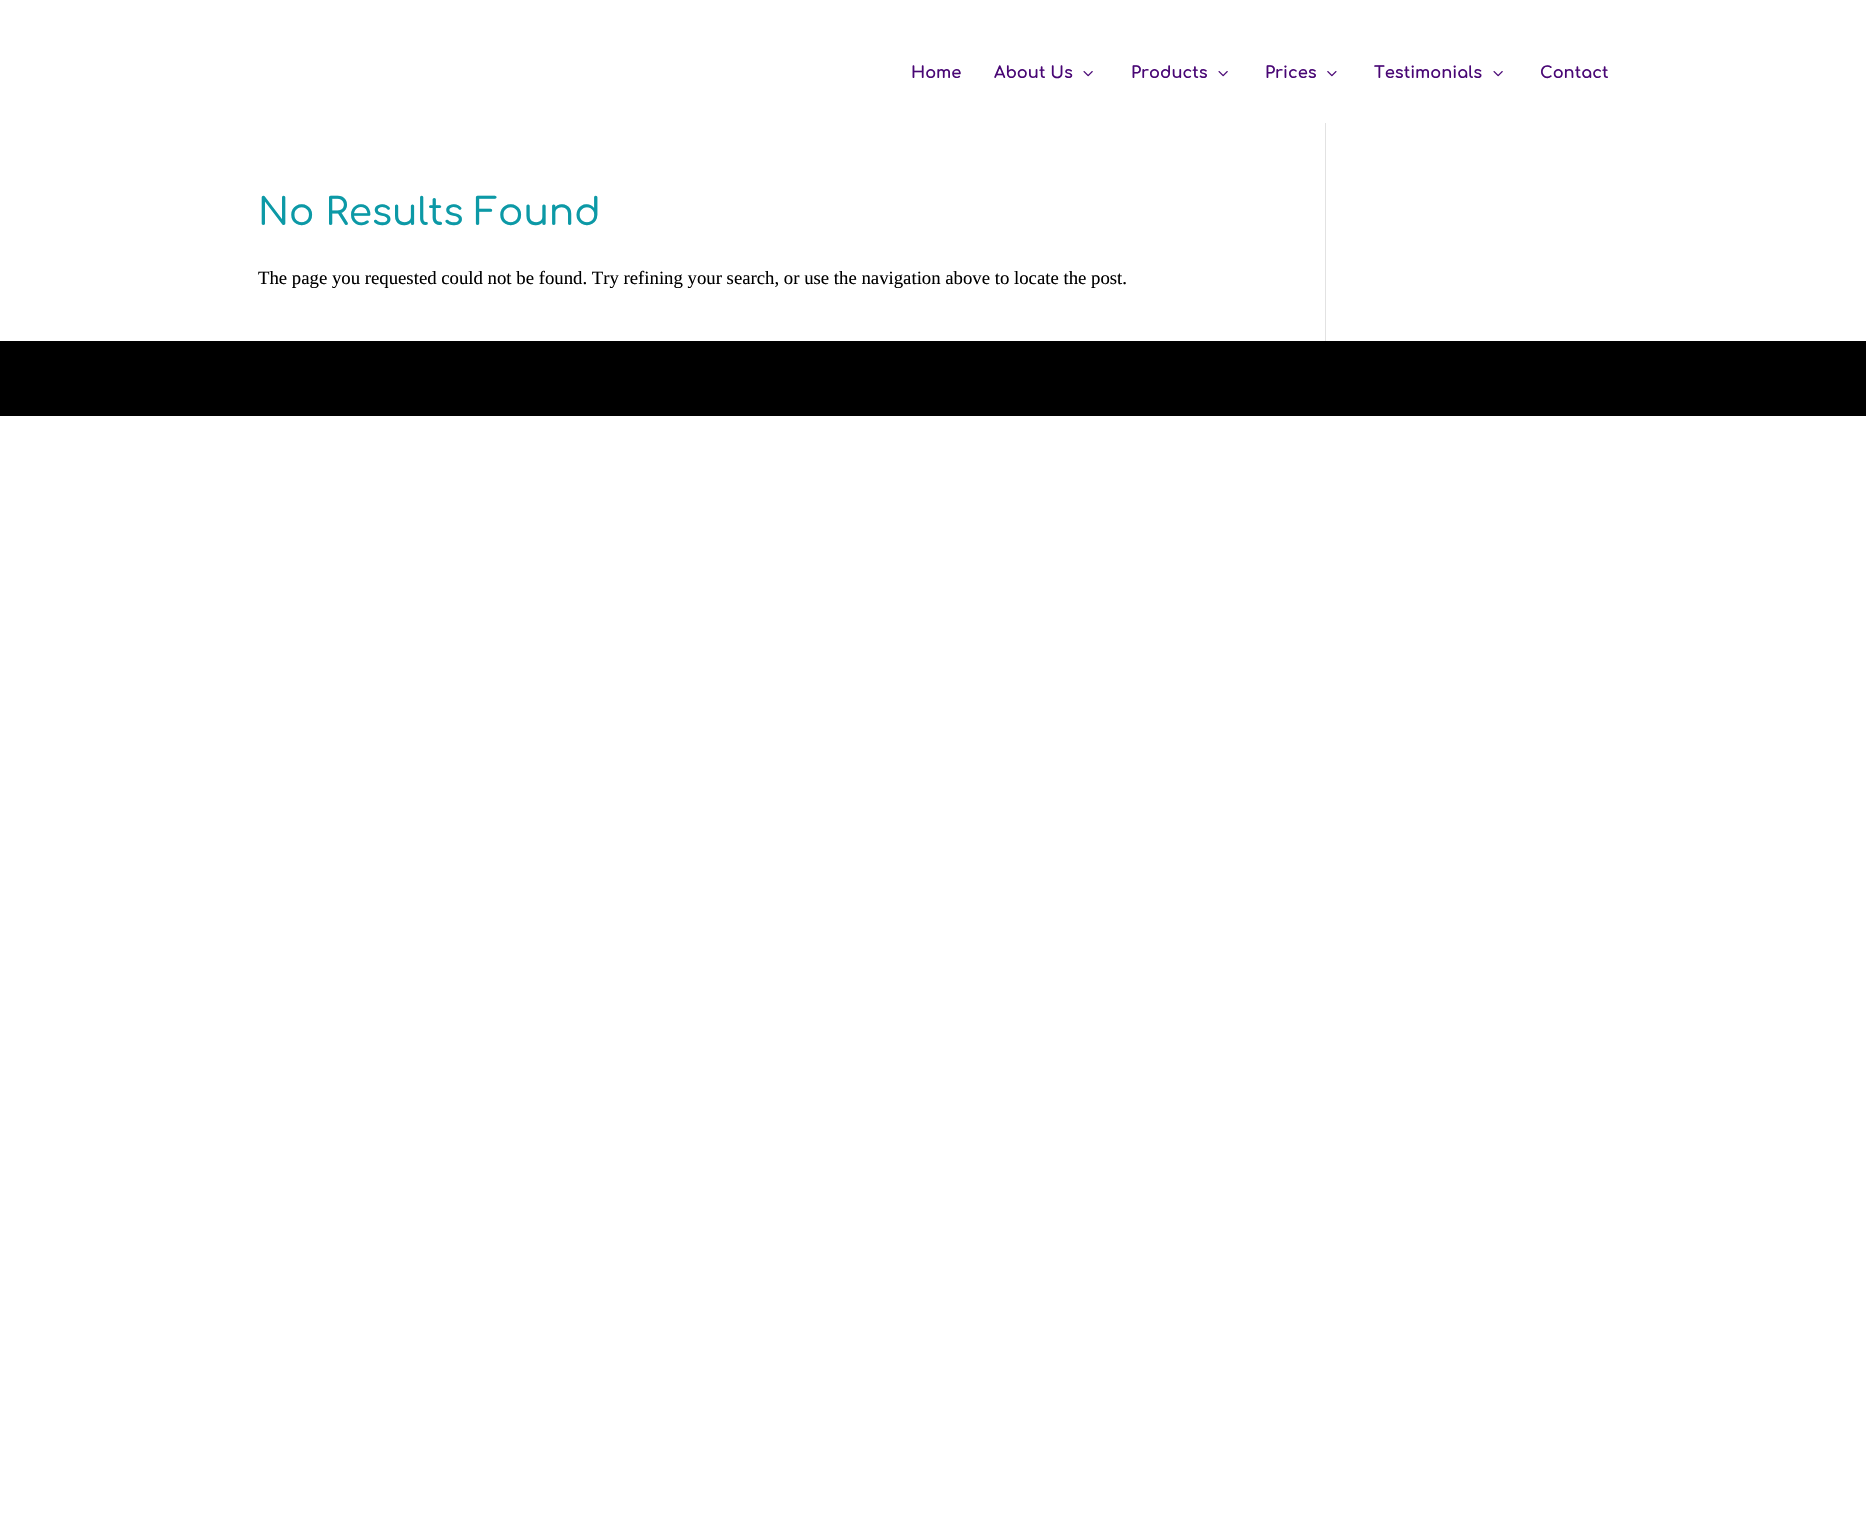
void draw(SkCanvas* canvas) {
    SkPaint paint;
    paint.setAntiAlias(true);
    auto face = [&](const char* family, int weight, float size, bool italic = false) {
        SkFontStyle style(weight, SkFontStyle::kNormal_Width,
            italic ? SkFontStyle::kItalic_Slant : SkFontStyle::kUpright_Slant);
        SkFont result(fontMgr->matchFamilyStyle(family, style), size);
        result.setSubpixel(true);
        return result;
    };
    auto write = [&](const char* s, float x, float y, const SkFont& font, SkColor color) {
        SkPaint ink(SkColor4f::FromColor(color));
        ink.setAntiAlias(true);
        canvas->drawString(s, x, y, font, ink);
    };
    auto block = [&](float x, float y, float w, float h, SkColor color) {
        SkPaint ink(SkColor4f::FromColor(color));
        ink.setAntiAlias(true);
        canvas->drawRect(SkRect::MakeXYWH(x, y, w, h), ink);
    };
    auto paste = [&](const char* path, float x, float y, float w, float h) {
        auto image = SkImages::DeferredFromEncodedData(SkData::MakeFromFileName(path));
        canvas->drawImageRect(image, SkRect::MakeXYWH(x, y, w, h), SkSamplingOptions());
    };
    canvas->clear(SK_ColorWHITE);
    auto kFont1 = face("Comfortaa", 700, 16.25f);
    write("Home", 911, 78, kFont1, SkColorSetRGB(73, 7, 117));
    write("About Us", 994, 78, kFont1, SkColorSetRGB(73, 7, 117));
    paste("pic1.png", 1083, 71, 10, 6);
    write("Products", 1131, 78, kFont1, SkColorSetRGB(73, 7, 117));
    paste("pic1.png", 1218, 71, 10, 6);
    write("Prices", 1265, 78, kFont1, SkColorSetRGB(73, 7, 117));
    paste("pic2.png", 1327, 71, 10, 6);
    write("Testimonials", 1374, 78, kFont1, SkColorSetRGB(73, 7, 117));
    paste("pic1.png", 1493, 71, 10, 6);
    write("Contact", 1540, 78, kFont1, SkColorSetRGB(73, 7, 117));
    auto kFont2 = face("Comfortaa", 500, 37.5f);
    write("No Results Found", 258, 225, kFont2, SkColorSetRGB(12, 153, 166));
    auto kFont3 = face("Liberation Serif", 400, 18.75f);
    write("The page you requested could not be found. Try refining your search, or use the navigation above to locate the post.", 258, 284, kFont3, SK_ColorBLACK);
    block(1325, 123, 1, 218, SkColorSetRGB(226, 226, 226));
    block(0, 341, 1866, 75, SK_ColorBLACK);
}
